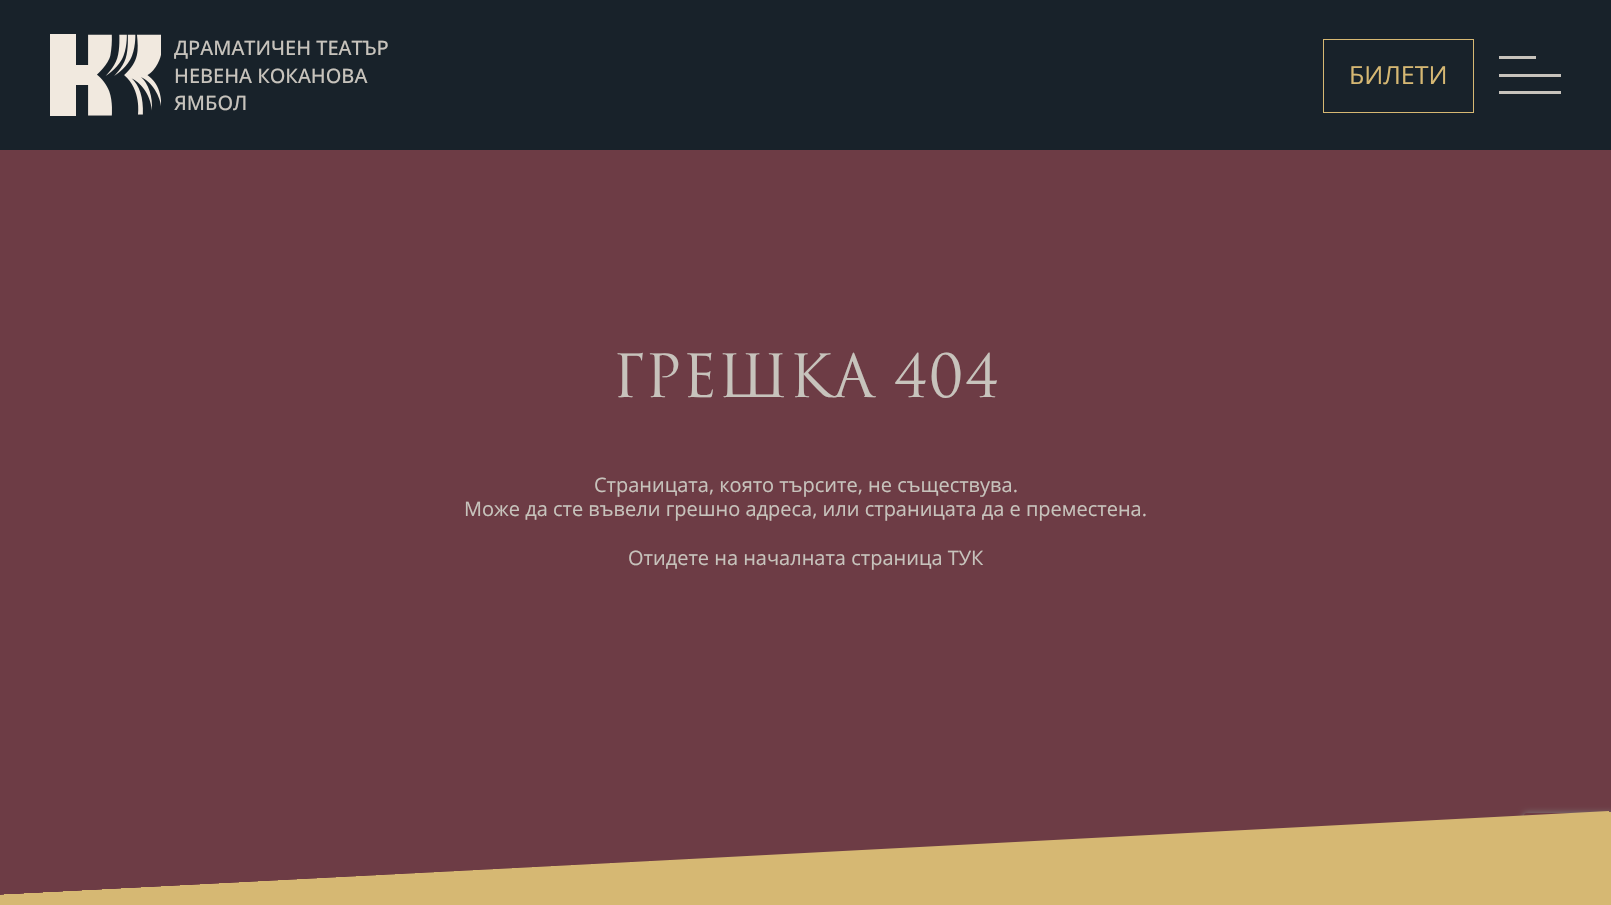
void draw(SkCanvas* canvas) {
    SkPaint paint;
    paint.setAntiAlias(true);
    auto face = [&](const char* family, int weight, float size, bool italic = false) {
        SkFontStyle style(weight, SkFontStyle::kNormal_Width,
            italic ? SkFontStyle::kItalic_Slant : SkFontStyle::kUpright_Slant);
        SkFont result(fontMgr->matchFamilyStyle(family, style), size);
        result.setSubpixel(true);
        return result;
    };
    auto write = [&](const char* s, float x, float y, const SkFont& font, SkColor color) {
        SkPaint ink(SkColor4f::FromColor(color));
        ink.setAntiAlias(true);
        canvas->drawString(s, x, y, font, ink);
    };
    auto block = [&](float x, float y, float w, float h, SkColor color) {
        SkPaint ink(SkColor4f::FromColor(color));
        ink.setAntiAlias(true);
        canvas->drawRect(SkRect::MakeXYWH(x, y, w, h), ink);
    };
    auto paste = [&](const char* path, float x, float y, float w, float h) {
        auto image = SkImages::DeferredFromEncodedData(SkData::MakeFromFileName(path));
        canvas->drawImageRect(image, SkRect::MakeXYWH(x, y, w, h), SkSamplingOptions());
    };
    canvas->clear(SkColorSetRGB(109, 60, 69));
    block(0, 0, 1611, 150, SkColorSetRGB(24, 34, 42));
    paste("pic1.png", 50, 34, 111, 82);
    auto kFont1 = face("Open Sans", 500, 20);
    write("ДРАМАТИЧЕН ТЕАТЪР", 174, 55, kFont1, SkColorSetRGB(199, 195, 188));
    write("НЕВЕНА КОКАНОВА", 174, 83, kFont1, SkColorSetRGB(199, 195, 188));
    write("ЯМБОЛ", 174, 110, kFont1, SkColorSetRGB(199, 195, 188));
    paint.setStyle(SkPaint::kStroke_Style);
    paint.setStrokeWidth(1);
    paint.setColor(SkColorSetRGB(214, 184, 115));
    canvas->drawRect(SkRect::MakeXYWH(1323.5f, 39.5f, 150, 73), paint);
    auto kFont2 = face("Open Sans", 400, 25);
    write("БИЛЕТИ", 1349, 84, kFont2, SkColorSetRGB(214, 184, 115));
    block(1499, 56, 37, 3, SkColorSetRGB(199, 195, 188));
    block(1499, 74, 62, 3, SkColorSetRGB(199, 195, 188));
    block(1499, 91, 62, 3, SkColorSetRGB(199, 195, 188));
    auto kFont3 = face("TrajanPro", 400, 58);
    write("ГРЕШКА 404", 612, 397, kFont3, SkColorSetRGB(199, 195, 188));
    auto kFont4 = face("Open Sans", 400, 20);
    write("Страницата, която търсите, не съществува.", 594, 492, kFont4, SkColorSetRGB(199, 195, 188));
    write("Може да сте въвели грешно адреса, или страницата да е преместена.", 464, 516, kFont4, SkColorSetRGB(199, 195, 188));
    write("Отидете на началната страница ТУК", 628, 565, kFont4, SkColorSetRGB(199, 195, 188));
    canvas->save();
    canvas->clipPath(SkPathBuilder(SkPathFillType::kEvenOdd).moveTo(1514, 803).lineTo(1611, 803).lineTo(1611, 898).lineTo(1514, 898).close().moveTo(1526.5f, 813).lineTo(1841.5f, 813).cubicTo(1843, 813, 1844, 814, 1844, 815.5f).lineTo(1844, 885.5f).cubicTo(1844, 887, 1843, 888, 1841.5f, 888).lineTo(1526.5f, 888).cubicTo(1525, 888, 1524, 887, 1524, 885.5f).lineTo(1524, 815.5f).cubicTo(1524, 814, 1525, 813, 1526.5f, 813).close().detach(), true);
    paint.setStyle(SkPaint::kFill_Style);
    paint.setColor(SkColorSetRGB(128, 128, 128));
    paint.setMaskFilter(SkMaskFilter::MakeBlur(kNormal_SkBlurStyle, 3));
    canvas->drawRoundRect(SkRect::MakeXYWH(1524, 813, 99, 75), 2.5f, 2.5f, paint);
    paint.setMaskFilter(nullptr);
    canvas->restore();
    {
        const SkColor colors[] = {SkColorSetRGB(214, 184, 115), SkColorSetRGB(214, 184, 115), SkColorSetARGB(0, 214, 184, 115)};
        const float stops[] = {0, 0.5f, 0.5f};
        const SkPoint ends[] = {{811, 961}, {800, 746}};
        paint.setShader(SkGradientShader::MakeLinear(ends, colors, stops, 3, SkTileMode::kClamp));
        paint.setAlpha(255);
    }
    canvas->drawRect(SkRect::MakeXYWH(0, 812, 1611, 93), paint);
    paint.setShader(nullptr);
    paint.setColor(SkColorSetRGB(214, 184, 115));
    canvas->drawPath(SkPathBuilder().moveTo(0, 895).lineTo(1609, 811).lineTo(1609, 817).lineTo(0, 901).close().detach(), paint);
}
